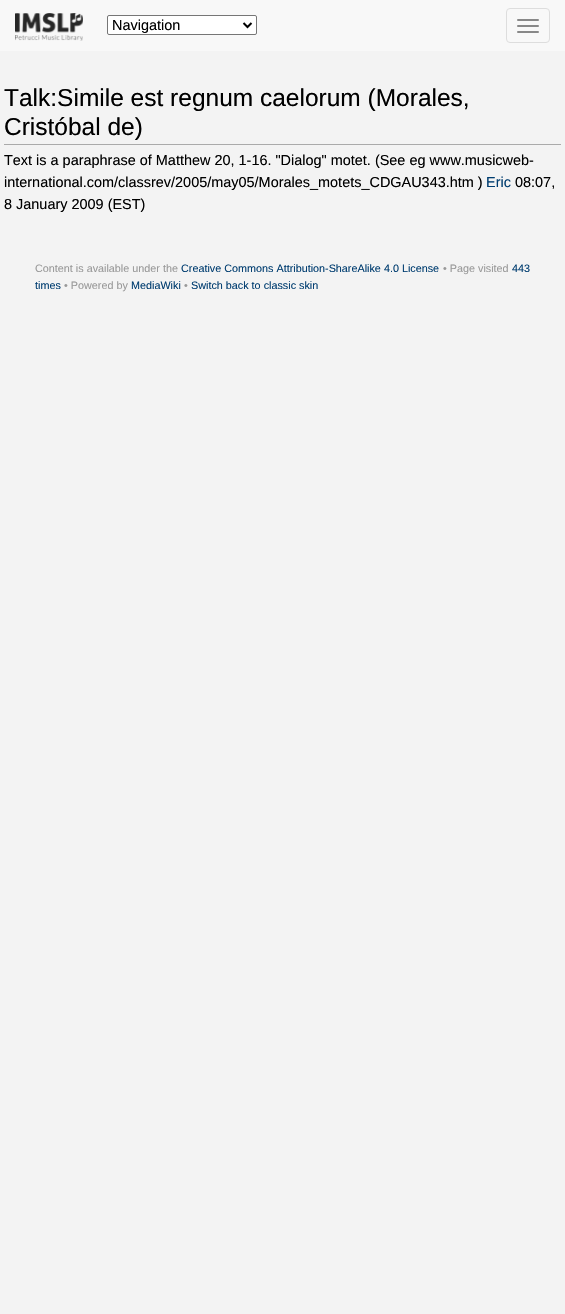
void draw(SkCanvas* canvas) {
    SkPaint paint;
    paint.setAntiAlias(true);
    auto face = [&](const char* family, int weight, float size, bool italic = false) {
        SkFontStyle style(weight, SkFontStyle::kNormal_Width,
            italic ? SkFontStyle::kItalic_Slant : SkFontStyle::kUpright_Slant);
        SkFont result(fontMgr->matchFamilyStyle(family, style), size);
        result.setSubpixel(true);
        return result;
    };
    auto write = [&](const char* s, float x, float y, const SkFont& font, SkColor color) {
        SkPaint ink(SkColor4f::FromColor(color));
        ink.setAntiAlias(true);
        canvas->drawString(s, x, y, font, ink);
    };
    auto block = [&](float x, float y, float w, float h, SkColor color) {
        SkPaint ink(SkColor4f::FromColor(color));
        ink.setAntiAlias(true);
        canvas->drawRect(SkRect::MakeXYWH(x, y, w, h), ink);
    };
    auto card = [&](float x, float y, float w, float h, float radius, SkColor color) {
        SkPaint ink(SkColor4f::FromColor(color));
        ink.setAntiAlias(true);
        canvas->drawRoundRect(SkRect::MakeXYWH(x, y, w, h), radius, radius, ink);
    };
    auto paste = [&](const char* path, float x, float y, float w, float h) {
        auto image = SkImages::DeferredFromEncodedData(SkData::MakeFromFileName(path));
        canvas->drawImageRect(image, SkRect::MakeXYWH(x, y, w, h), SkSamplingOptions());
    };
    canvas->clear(SkColorSetRGB(243, 243, 243));
    block(0, 0, 565, 51, SkColorSetRGB(248, 248, 248));
    paste("pic1.png", 15, 13, 68, 28);
    paint.setColor(SK_ColorWHITE);
    canvas->drawRoundRect(SkRect::MakeXYWH(107.5f, 15.5f, 149, 19), 1.5f, 1.5f, paint);
    paint.setStyle(SkPaint::kStroke_Style);
    paint.setStrokeWidth(1);
    paint.setColor(SkColorSetRGB(118, 118, 118));
    canvas->drawRoundRect(SkRect::MakeXYWH(107.5f, 15.5f, 149, 19), 1.5f, 1.5f, paint);
    paint.setStrokeWidth(2);
    paint.setColor(SK_ColorBLACK);
    canvas->drawPath(SkPathBuilder().moveTo(243.5f, 23).lineTo(247.5f, 27).lineTo(251.5f, 23).detach(), paint);
    auto kFont1 = face("Liberation Sans", 400, 14.45f);
    write("Navigation", 112, 30, kFont1, SK_ColorBLACK);
    paint.setStrokeWidth(1);
    paint.setColor(SkColorSetRGB(221, 221, 221));
    canvas->drawRoundRect(SkRect::MakeXYWH(506.5f, 8.5f, 43, 34), 3.5f, 3.5f, paint);
    card(517, 19, 22, 2, 1, SkColorSetRGB(136, 136, 136));
    card(517, 25, 22, 2, 1, SkColorSetRGB(136, 136, 136));
    card(517, 31, 22, 2, 1, SkColorSetRGB(136, 136, 136));
    block(4, 144, 557, 1, SkColorSetRGB(170, 170, 170));
    auto kFont2 = face("Liberation Sans", 400, 24.5f);
    write("Talk:Simile est regnum caelorum (Morales,", 4, 106, kFont2, SK_ColorBLACK);
    write("Cristóbal de)", 4, 135, kFont2, SK_ColorBLACK);
    write("Text is a paraphrase of Matthew 20, 1-16. \"Dialog\" motet. (See eg www.musicweb-", 4, 165, kFont1, SK_ColorBLACK);
    write("international.com/classrev/2005/may05/Morales_motets_CDGAU343.htm )", 4, 187, kFont1, SK_ColorBLACK);
    write("Eric", 486, 187, kFont1, SkColorSetRGB(0, 61, 112));
    write("08:07,", 515, 187, kFont1, SK_ColorBLACK);
    write("8 January 2009 (EST)", 4, 209, kFont1, SK_ColorBLACK);
    auto kFont3 = face("Liberation Sans", 400, 10.8f);
    write("Content is available under the", 35, 272, kFont3, SkColorSetRGB(153, 153, 153));
    write("Creative Commons Attribution-ShareAlike 4.0 License", 181, 272, kFont3, SkColorSetRGB(0, 61, 112));
    write("• Page visited", 443, 272, kFont3, SkColorSetRGB(153, 153, 153));
    write("443", 512, 272, kFont3, SkColorSetRGB(0, 61, 112));
    write("times", 35, 289, kFont3, SkColorSetRGB(0, 61, 112));
    write("• Powered by", 64, 289, kFont3, SkColorSetRGB(153, 153, 153));
    write("MediaWiki", 131, 289, kFont3, SkColorSetRGB(0, 61, 112));
    write("•", 184, 289, kFont3, SkColorSetRGB(153, 153, 153));
    write("Switch back to classic skin", 191, 289, kFont3, SkColorSetRGB(0, 61, 112));
}
